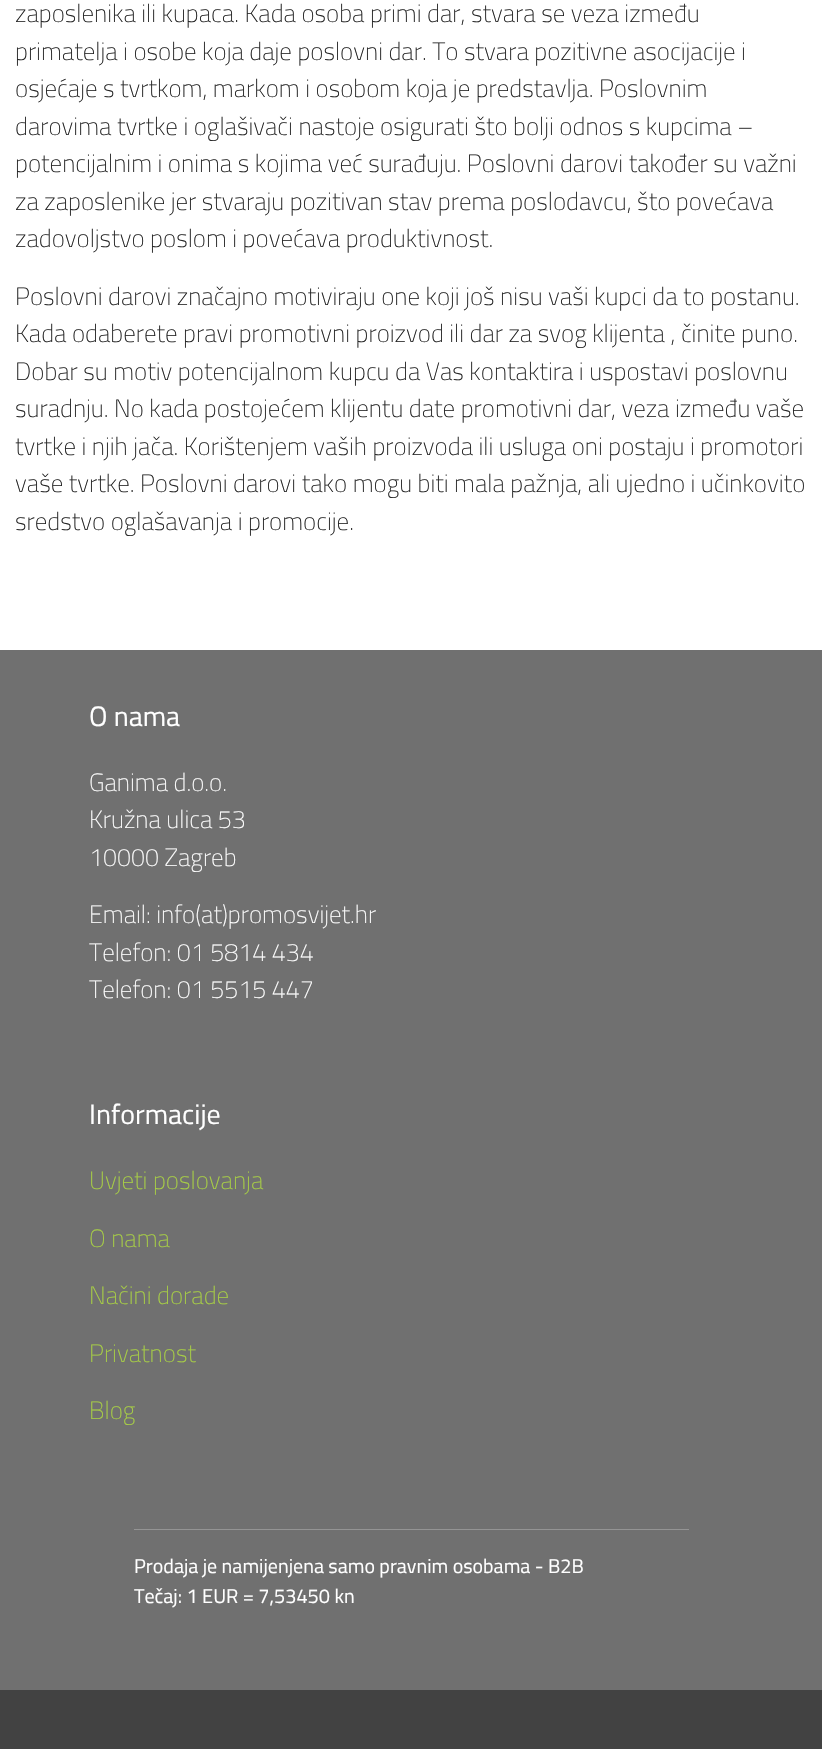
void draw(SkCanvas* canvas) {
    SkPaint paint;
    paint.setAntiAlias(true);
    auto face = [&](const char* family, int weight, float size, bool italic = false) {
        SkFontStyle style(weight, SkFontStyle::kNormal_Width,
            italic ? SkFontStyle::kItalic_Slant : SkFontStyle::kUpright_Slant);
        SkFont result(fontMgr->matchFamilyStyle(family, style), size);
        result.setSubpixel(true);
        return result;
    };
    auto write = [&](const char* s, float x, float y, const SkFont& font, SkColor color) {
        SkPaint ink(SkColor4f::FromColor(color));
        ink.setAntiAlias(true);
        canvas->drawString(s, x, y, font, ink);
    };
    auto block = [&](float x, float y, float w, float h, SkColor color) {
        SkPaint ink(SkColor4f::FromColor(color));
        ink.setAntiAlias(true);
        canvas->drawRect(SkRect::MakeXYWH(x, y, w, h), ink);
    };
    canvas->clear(SK_ColorWHITE);
    auto kFont1 = face("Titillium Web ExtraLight", 200, 25);
    write("zaposlenika ili kupaca. Kada osoba primi dar, stvara se veza između", 15, 22, kFont1, SkColorSetRGB(37, 37, 37));
    write("primatelja i osobe koja daje poslovni dar. To stvara pozitivne asocijacije i", 15, 60, kFont1, SkColorSetRGB(37, 37, 37));
    write("osjećaje s tvrtkom, markom i osobom koja je predstavlja. Poslovnim", 15, 97, kFont1, SkColorSetRGB(37, 37, 37));
    write("darovima tvrtke i oglašivači nastoje osigurati što bolji odnos s kupcima –", 15, 135, kFont1, SkColorSetRGB(37, 37, 37));
    write("potencijalnim i onima s kojima već surađuju. Poslovni darovi također su važni", 15, 172, kFont1, SkColorSetRGB(37, 37, 37));
    write("za zaposlenike jer stvaraju pozitivan stav prema poslodavcu, što povećava", 15, 210, kFont1, SkColorSetRGB(37, 37, 37));
    write("zadovoljstvo poslom i povećava produktivnost.", 15, 247, kFont1, SkColorSetRGB(37, 37, 37));
    write("Poslovni darovi značajno motiviraju one koji još nisu vaši kupci da to postanu.", 15, 305, kFont1, SkColorSetRGB(37, 37, 37));
    write("Kada odaberete pravi promotivni proizvod ili dar za svog klijenta , činite puno.", 15, 342, kFont1, SkColorSetRGB(37, 37, 37));
    write("Dobar su motiv potencijalnom kupcu da Vas kontaktira i uspostavi poslovnu", 15, 380, kFont1, SkColorSetRGB(37, 37, 37));
    write("suradnju. No kada postojećem klijentu date promotivni dar, veza između vaše", 15, 417, kFont1, SkColorSetRGB(37, 37, 37));
    write("tvrtke i njih jača. Korištenjem vaših proizvoda ili usluga oni postaju i promotori", 15, 455, kFont1, SkColorSetRGB(37, 37, 37));
    write("vaše tvrtke. Poslovni darovi tako mogu biti mala pažnja, ali ujedno i učinkovito", 15, 492, kFont1, SkColorSetRGB(37, 37, 37));
    write("sredstvo oglašavanja i promocije.", 15, 530, kFont1, SkColorSetRGB(37, 37, 37));
    block(0, 650, 822, 1040, SkColorSetRGB(112, 112, 112));
    auto kFont2 = face("Titillium Web", 400, 28);
    write("O nama", 89, 726, kFont2, SK_ColorWHITE);
    write("Ganima d.o.o.", 89, 791, kFont1, SK_ColorWHITE);
    write("Kružna ulica 53", 89, 828, kFont1, SK_ColorWHITE);
    write("10000 Zagreb", 89, 866, kFont1, SK_ColorWHITE);
    write("Email: info(at)promosvijet.hr", 89, 923, kFont1, SK_ColorWHITE);
    write("Telefon: 01 5814 434", 89, 961, kFont1, SK_ColorWHITE);
    write("Telefon: 01 5515 447", 89, 998, kFont1, SK_ColorWHITE);
    write("Informacije", 89, 1124, kFont2, SK_ColorWHITE);
    write("Uvjeti poslovanja", 89, 1189, kFont1, SkColorSetRGB(168, 207, 69));
    write("O nama", 89, 1247, kFont1, SkColorSetRGB(168, 207, 69));
    write("Načini dorade", 89, 1304, kFont1, SkColorSetRGB(168, 207, 69));
    write("Privatnost", 89, 1362, kFont1, SkColorSetRGB(168, 207, 69));
    write("Blog", 89, 1419, kFont1, SkColorSetRGB(168, 207, 69));
    block(134, 1529, 555, 1, SkColorSetRGB(148, 148, 148));
    auto kFont3 = face("Titillium Web", 400, 20);
    write("Prodaja je namijenjena samo pravnim osobama - B2B", 134, 1573, kFont3, SK_ColorWHITE);
    write("Tečaj: 1 EUR = 7,53450 kn", 134, 1603, kFont3, SK_ColorWHITE);
    block(0, 1690, 822, 59, SkColorSetRGB(66, 66, 66));
}
